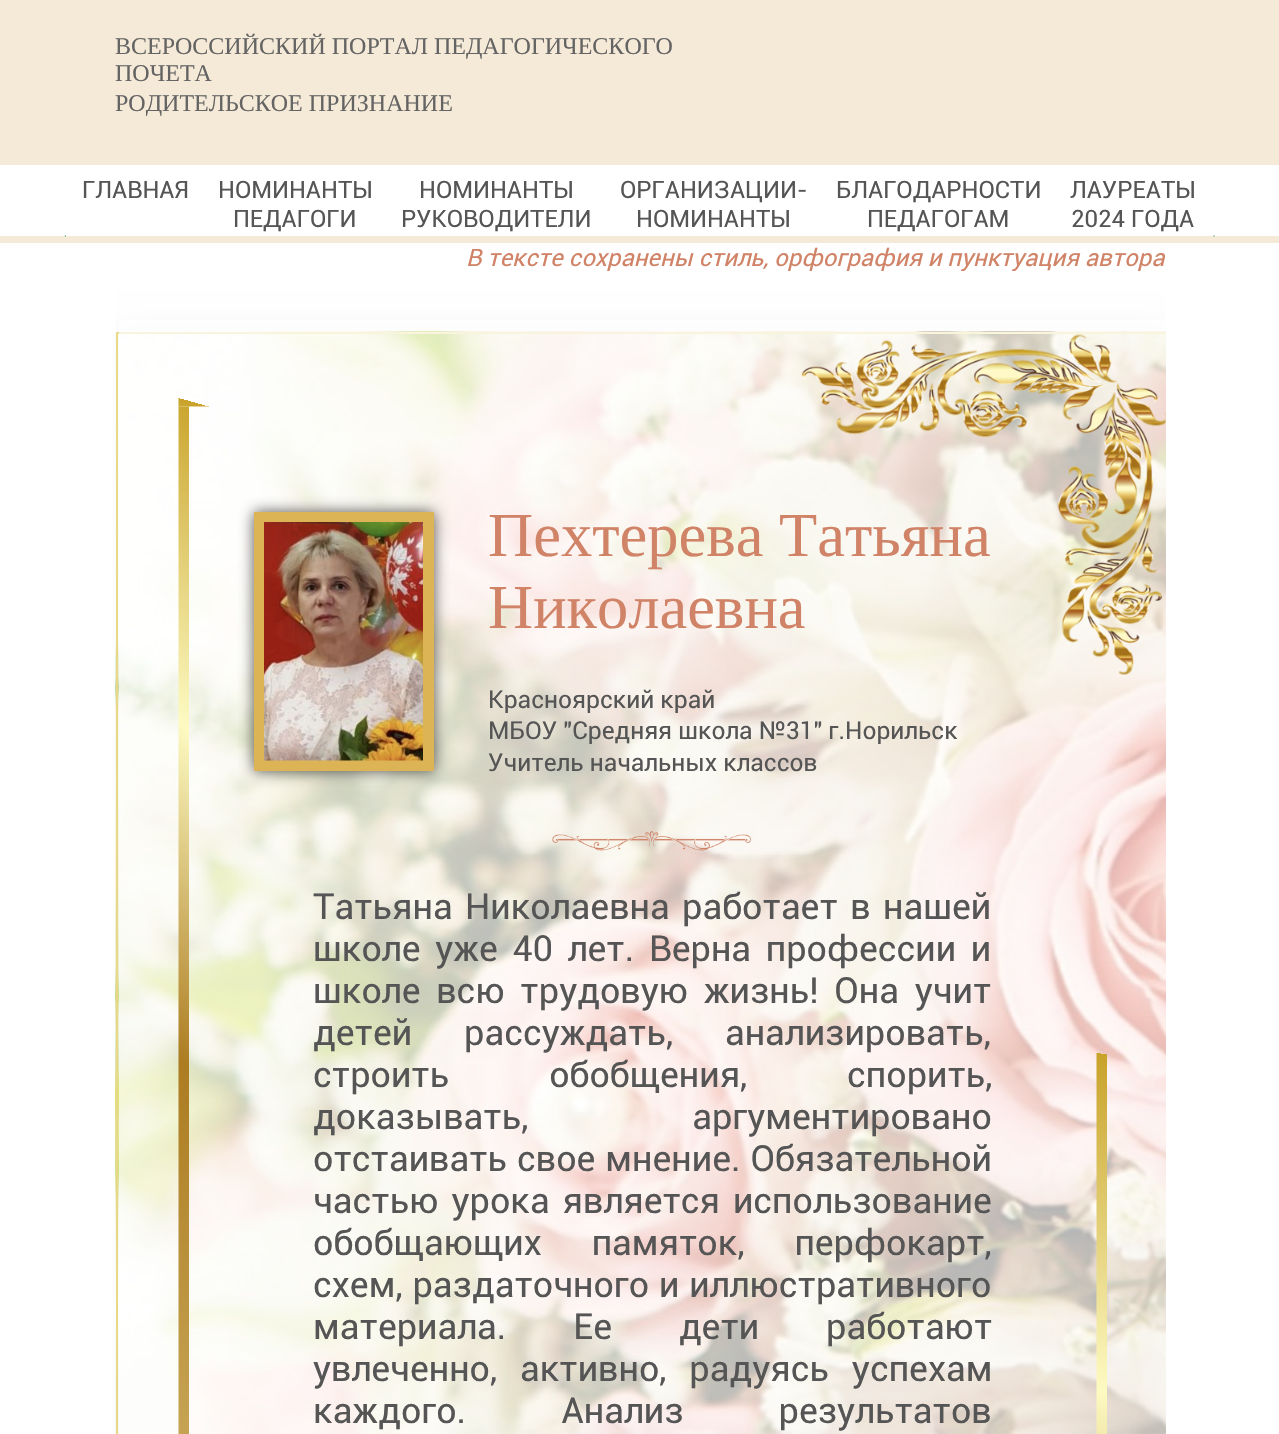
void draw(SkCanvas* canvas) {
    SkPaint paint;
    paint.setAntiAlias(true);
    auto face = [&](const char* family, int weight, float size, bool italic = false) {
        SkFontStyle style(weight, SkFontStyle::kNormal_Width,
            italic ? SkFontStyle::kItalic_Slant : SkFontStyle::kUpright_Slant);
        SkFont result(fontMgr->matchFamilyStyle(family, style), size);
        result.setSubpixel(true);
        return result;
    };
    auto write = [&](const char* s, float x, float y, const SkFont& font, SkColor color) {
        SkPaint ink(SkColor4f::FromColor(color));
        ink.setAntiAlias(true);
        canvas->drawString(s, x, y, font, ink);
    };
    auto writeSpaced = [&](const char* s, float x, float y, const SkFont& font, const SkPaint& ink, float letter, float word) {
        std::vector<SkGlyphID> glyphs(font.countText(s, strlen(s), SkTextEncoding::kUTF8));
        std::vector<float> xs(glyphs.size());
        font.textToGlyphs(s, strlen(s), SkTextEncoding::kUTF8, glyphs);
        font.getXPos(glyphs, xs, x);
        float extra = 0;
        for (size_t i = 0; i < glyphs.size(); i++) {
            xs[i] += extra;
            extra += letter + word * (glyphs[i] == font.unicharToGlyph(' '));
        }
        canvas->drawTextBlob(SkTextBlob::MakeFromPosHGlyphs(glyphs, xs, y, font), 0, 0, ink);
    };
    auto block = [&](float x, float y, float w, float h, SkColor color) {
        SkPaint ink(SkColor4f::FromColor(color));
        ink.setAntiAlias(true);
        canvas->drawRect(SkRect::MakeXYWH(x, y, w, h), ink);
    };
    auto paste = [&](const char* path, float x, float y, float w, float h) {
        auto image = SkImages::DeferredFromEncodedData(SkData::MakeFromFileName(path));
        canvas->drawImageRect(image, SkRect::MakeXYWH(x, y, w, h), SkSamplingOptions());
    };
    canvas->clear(SK_ColorWHITE);
    block(0, 0, 1279, 243, SkColorSetRGB(245, 233, 215));
    auto kFont1 = face("Liberation Serif", 400, 24);
    write("ВСЕРОССИЙСКИЙ ПОРТАЛ ПЕДАГОГИЧЕСКОГО", 115, 54, kFont1, SkColorSetRGB(100, 100, 100));
    write("ПОЧЕТА", 115, 81, kFont1, SkColorSetRGB(100, 100, 100));
    write("РОДИТЕЛЬСКОЕ ПРИЗНАНИЕ", 115, 111, kFont1, SkColorSetRGB(100, 100, 100));
    block(0, 165, 1279, 71, SK_ColorWHITE);
    auto kFont2 = face("Roboto", 400, 24);
    write("ГЛАВНАЯ", 82, 198, kFont2, SkColorSetRGB(85, 85, 85));
    write("НОМИНАНТЫ", 218, 198, kFont2, SkColorSetRGB(85, 85, 85));
    write("ПЕДАГОГИ", 233, 227, kFont2, SkColorSetRGB(85, 85, 85));
    write("НОМИНАНТЫ", 419, 198, kFont2, SkColorSetRGB(85, 85, 85));
    write("РУКОВОДИТЕЛИ", 401, 227, kFont2, SkColorSetRGB(85, 85, 85));
    write("ОРГАНИЗАЦИИ-", 620, 198, kFont2, SkColorSetRGB(85, 85, 85));
    write("НОМИНАНТЫ", 636, 227, kFont2, SkColorSetRGB(85, 85, 85));
    write("БЛАГОДАРНОСТИ", 836, 198, kFont2, SkColorSetRGB(85, 85, 85));
    write("ПЕДАГОГАМ", 867, 227, kFont2, SkColorSetRGB(85, 85, 85));
    write("ЛАУРЕАТЫ", 1070, 198, kFont2, SkColorSetRGB(85, 85, 85));
    write("2024 ГОДА", 1071, 227, kFont2, SkColorSetRGB(85, 85, 85));
    paint.setColor(SkColorSetRGB(12, 144, 118));
    canvas->drawPath(SkPathBuilder().moveTo(64.5f, 235.5f).lineTo(66, 235.5f).lineTo(66, 237).close().detach(), paint);
    canvas->drawPath(SkPathBuilder().moveTo(1213.5f, 235.5f).lineTo(1215, 235.5f).lineTo(1213.5f, 237).close().detach(), paint);
    auto kFont3 = face("Roboto", 400, 24, true);
    write("В тексте сохранены стиль, орфография и пунктуация автора", 466, 266, kFont3, SkColorSetRGB(208, 131, 103));
    canvas->save();
    canvas->clipRect(SkRect::MakeXYWH(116, 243, 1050, 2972));
    paint.setColor(SkColorSetARGB(64, 0, 0, 0));
    paint.setMaskFilter(SkMaskFilter::MakeBlur(kNormal_SkBlurStyle, 21));
    canvas->drawRect(SkRect::MakeXYWH(116, 353, 1056, 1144), paint);
    paint.setMaskFilter(nullptr);
    canvas->restore();
    paste("pic1.png", 115, 331, 1051, 1103);
    canvas->save();
    canvas->clipRect(SkRect::MakeXYWH(116, 243, 1050, 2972));
    paint.setColor(SkColorSetRGB(232, 217, 136));
    canvas->drawPath(SkPathBuilder().moveTo(116, 332).lineTo(1172, 332).lineTo(1168, 334).lineTo(118, 334).close().detach(), paint);
    canvas->restore();
    canvas->drawPath(SkPathBuilder().moveTo(116, 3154).lineTo(116, 332).lineTo(118, 334).lineTo(118, 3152).close().detach(), paint);
    block(119, 320, 1047, 1114, SkColorSetARGB(181, 255, 255, 255));
    paste("pic2.png", 801, 334, 365, 341);
    paste("pic3.png", 178, 398, 929, 1036);
    paint.setColor(SkColorSetARGB(219, 56, 54, 54));
    paint.setMaskFilter(SkMaskFilter::MakeBlur(kNormal_SkBlurStyle, 7));
    canvas->drawRect(SkRect::MakeXYWH(254, 512, 180, 259), paint);
    paint.setMaskFilter(nullptr);
    paint.setStyle(SkPaint::kStroke_Style);
    paint.setStrokeWidth(11);
    paint.setColor(SkColorSetRGB(220, 180, 86));
    canvas->drawRect(SkRect::MakeXYWH(259.5f, 517.5f, 169, 248), paint);
    paste("pic4.png", 264, 522, 159, 239);
    auto kFont4 = face("Liberation Serif", 400, 62.5f);
    write("Пехтерева Татьяна", 488, 556, kFont4, SkColorSetRGB(208, 131, 103));
    write("Николаевна", 488, 628, kFont4, SkColorSetRGB(208, 131, 103));
    auto kFont5 = face("Roboto", 400, 24.6f);
    write("Красноярский край", 488, 708, kFont5, SkColorSetRGB(85, 85, 85));
    write("МБОУ \"Средняя школа №31\" г.Норильск", 488, 739, kFont5, SkColorSetRGB(85, 85, 85));
    write("Учитель начальных классов", 488, 771, kFont5, SkColorSetRGB(85, 85, 85));
    paste("pic5.png", 552, 831, 199, 21);
    auto kFont6 = face("Roboto", 400, 35.9f);
    paint.setStyle(SkPaint::kFill_Style);
    paint.setColor(SkColorSetRGB(85, 85, 85));
    writeSpaced("Татьяна Николаевна работает в нашей", 313, 919, kFont6, paint, 0, 3.5f);
    writeSpaced("школе уже 40 лет. Верна профессии и", 313, 961, kFont6, paint, 0, 5.75f);
    writeSpaced("школе всю трудовую жизнь! Она учит", 313, 1003, kFont6, paint, 0, 6.75f);
    writeSpaced("детей рассуждать, анализировать,", 313, 1045, kFont6, paint, 0, 43);
    writeSpaced("строить обобщения, спорить,", 313, 1087, kFont6, paint, 0, 91);
    writeSpaced("доказывать, аргументировано", 313, 1129, kFont6, paint, 0, 155);
    writeSpaced("отстаивать свое мнение. Обязательной", 313, 1171, kFont6, paint, 0, 1);
    writeSpaced("частью урока является использование", 313, 1213, kFont6, paint, 0, 4);
    writeSpaced("обобщающих памяток, перфокарт,", 313, 1255, kFont6, paint, 0, 41);
    writeSpaced("схем, раздаточного и иллюстративного", 313, 1297, kFont6, paint, 0, 1);
    writeSpaced("материала. Ее дети работают", 313, 1339, kFont6, paint, 0, 58);
    writeSpaced("увлеченно, активно, радуясь успехам", 313, 1381, kFont6, paint, 0, 14);
    writeSpaced("каждого. Анализ результатов", 313, 1423, kFont6, paint, 0, 86);
}
